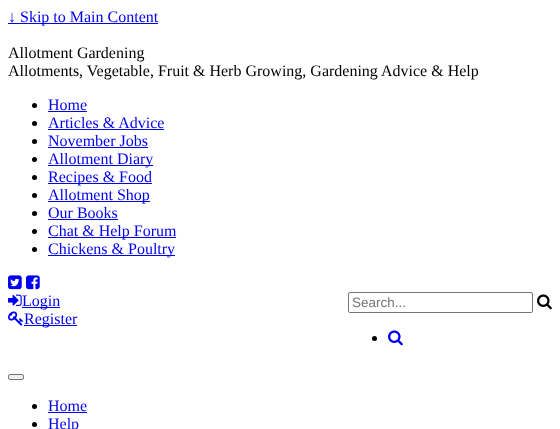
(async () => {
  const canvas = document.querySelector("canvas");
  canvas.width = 560;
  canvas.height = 429;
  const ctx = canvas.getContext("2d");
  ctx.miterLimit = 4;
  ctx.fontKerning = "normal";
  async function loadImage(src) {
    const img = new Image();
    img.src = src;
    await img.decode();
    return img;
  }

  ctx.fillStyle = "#ffffff";
  ctx.fillRect(0, 0, 560, 429);
  ctx.fillStyle = "#0000ee";
  ctx.fillRect(8, 23, 150, 1);
  ctx.fillStyle = "#000000";
  ctx.beginPath();
  ctx.arc(34.5, 105.5, 2.5, 0, Math.PI * 2);
  ctx.fill();
  ctx.fillStyle = "#0000ee";
  ctx.fillRect(48, 111, 39, 1);
  ctx.fillStyle = "#000000";
  ctx.beginPath();
  ctx.arc(34.5, 123.5, 2.5, 0, Math.PI * 2);
  ctx.fill();
  ctx.fillStyle = "#0000ee";
  ctx.fillRect(48, 129, 116, 1);
  ctx.fillStyle = "#000000";
  ctx.beginPath();
  ctx.arc(34.5, 141.5, 2.5, 0, Math.PI * 2);
  ctx.fill();
  ctx.fillStyle = "#0000ee";
  ctx.fillRect(48, 147, 100, 1);
  ctx.fillStyle = "#000000";
  ctx.beginPath();
  ctx.arc(34.5, 159.5, 2.5, 0, Math.PI * 2);
  ctx.fill();
  ctx.fillStyle = "#0000ee";
  ctx.fillRect(48, 165, 105, 1);
  ctx.fillStyle = "#000000";
  ctx.beginPath();
  ctx.arc(34.5, 177.5, 2.5, 0, Math.PI * 2);
  ctx.fill();
  ctx.fillStyle = "#0000ee";
  ctx.fillRect(48, 183, 104, 1);
  ctx.fillStyle = "#000000";
  ctx.beginPath();
  ctx.arc(34.5, 195.5, 2.5, 0, Math.PI * 2);
  ctx.fill();
  ctx.fillStyle = "#0000ee";
  ctx.fillRect(48, 201, 102, 1);
  ctx.fillStyle = "#000000";
  ctx.beginPath();
  ctx.arc(34.5, 213.5, 2.5, 0, Math.PI * 2);
  ctx.fill();
  ctx.fillStyle = "#0000ee";
  ctx.fillRect(48, 219, 70, 1);
  ctx.fillStyle = "#000000";
  ctx.beginPath();
  ctx.arc(34.5, 231.5, 2.5, 0, Math.PI * 2);
  ctx.fill();
  ctx.fillStyle = "#0000ee";
  ctx.fillRect(48, 237, 128, 1);
  ctx.fillStyle = "#000000";
  ctx.beginPath();
  ctx.arc(34.5, 249.5, 2.5, 0, Math.PI * 2);
  ctx.fill();
  ctx.fillStyle = "#0000ee";
  ctx.fillRect(48, 255, 127, 1);
  ctx.drawImage(await loadImage("img/1.png"), 8, 275, 14, 15);
  ctx.drawImage(await loadImage("img/2.png"), 26, 275, 14, 15);
  ctx.drawImage(await loadImage("img/3.png"), 8, 294, 14, 12);
  ctx.fillRect(22, 307, 38, 1);
  ctx.drawImage(await loadImage("img/4.png"), 8, 311, 15, 15);
  ctx.fillRect(24, 325, 53, 1);
  ctx.beginPath();
  ctx.roundRect(348.5, 292.5, 184, 20, 1.5);
  ctx.strokeStyle = "#767676";
  ctx.stroke();
  ctx.drawImage(await loadImage("img/5.png"), 537, 294, 15, 16);
  ctx.fillStyle = "#000000";
  ctx.beginPath();
  ctx.arc(374.5, 338.5, 2.5, 0, Math.PI * 2);
  ctx.fill();
  ctx.drawImage(await loadImage("img/6.png"), 388, 330, 15, 16);
  ctx.fillStyle = "#efefef";
  ctx.beginPath();
  ctx.roundRect(8.5, 374.5, 15, 5, 1.5);
  ctx.fill();
  ctx.stroke();
  ctx.fillStyle = "#000000";
  ctx.beginPath();
  ctx.arc(34.5, 406.5, 2.5, 0, Math.PI * 2);
  ctx.fill();
  ctx.fillStyle = "#0000ee";
  ctx.fillRect(48, 412, 39, 1);
  ctx.fillStyle = "#000000";
  ctx.beginPath();
  ctx.arc(34.5, 424.5, 2.5, 0, Math.PI * 2);
  ctx.fill();
  ctx.font = "16px Liberation Serif";
  ctx.fillStyle = "#0000ee";
  ctx.fillText("↓ Skip to Main Content", 8, 22);
  ctx.fillStyle = "#000000";
  ctx.fillText("Allotment Gardening", 8, 58);
  ctx.fillText("Allotments, Vegetable, Fruit & Herb Growing, Gardening Advice & Help", 8, 76);
  ctx.fillStyle = "#0000ee";
  for (const [text, x, y] of [
    ["Home", 48, 110],
    ["Articles & Advice", 48, 128],
    ["November Jobs", 48, 146],
    ["Allotment Diary", 48, 164],
    ["Recipes & Food", 48, 182],
    ["Allotment Shop", 48, 200],
    ["Our Books", 48, 218],
    ["Chat & Help Forum", 48, 236],
    ["Chickens & Poultry", 48, 254],
    ["Login", 22, 306],
    ["Register", 24, 324],
  ]) {
    ctx.fillText(text, x, y);
  }
  ctx.font = "13.5px Liberation Sans";
  ctx.fillStyle = "#757575";
  ctx.fillText("Search...", 352, 307);
  ctx.font = "16px Liberation Serif";
  ctx.fillStyle = "#0000ee";
  ctx.fillText("Home", 48, 411);
  ctx.fillText("Help", 48, 429);
})();
